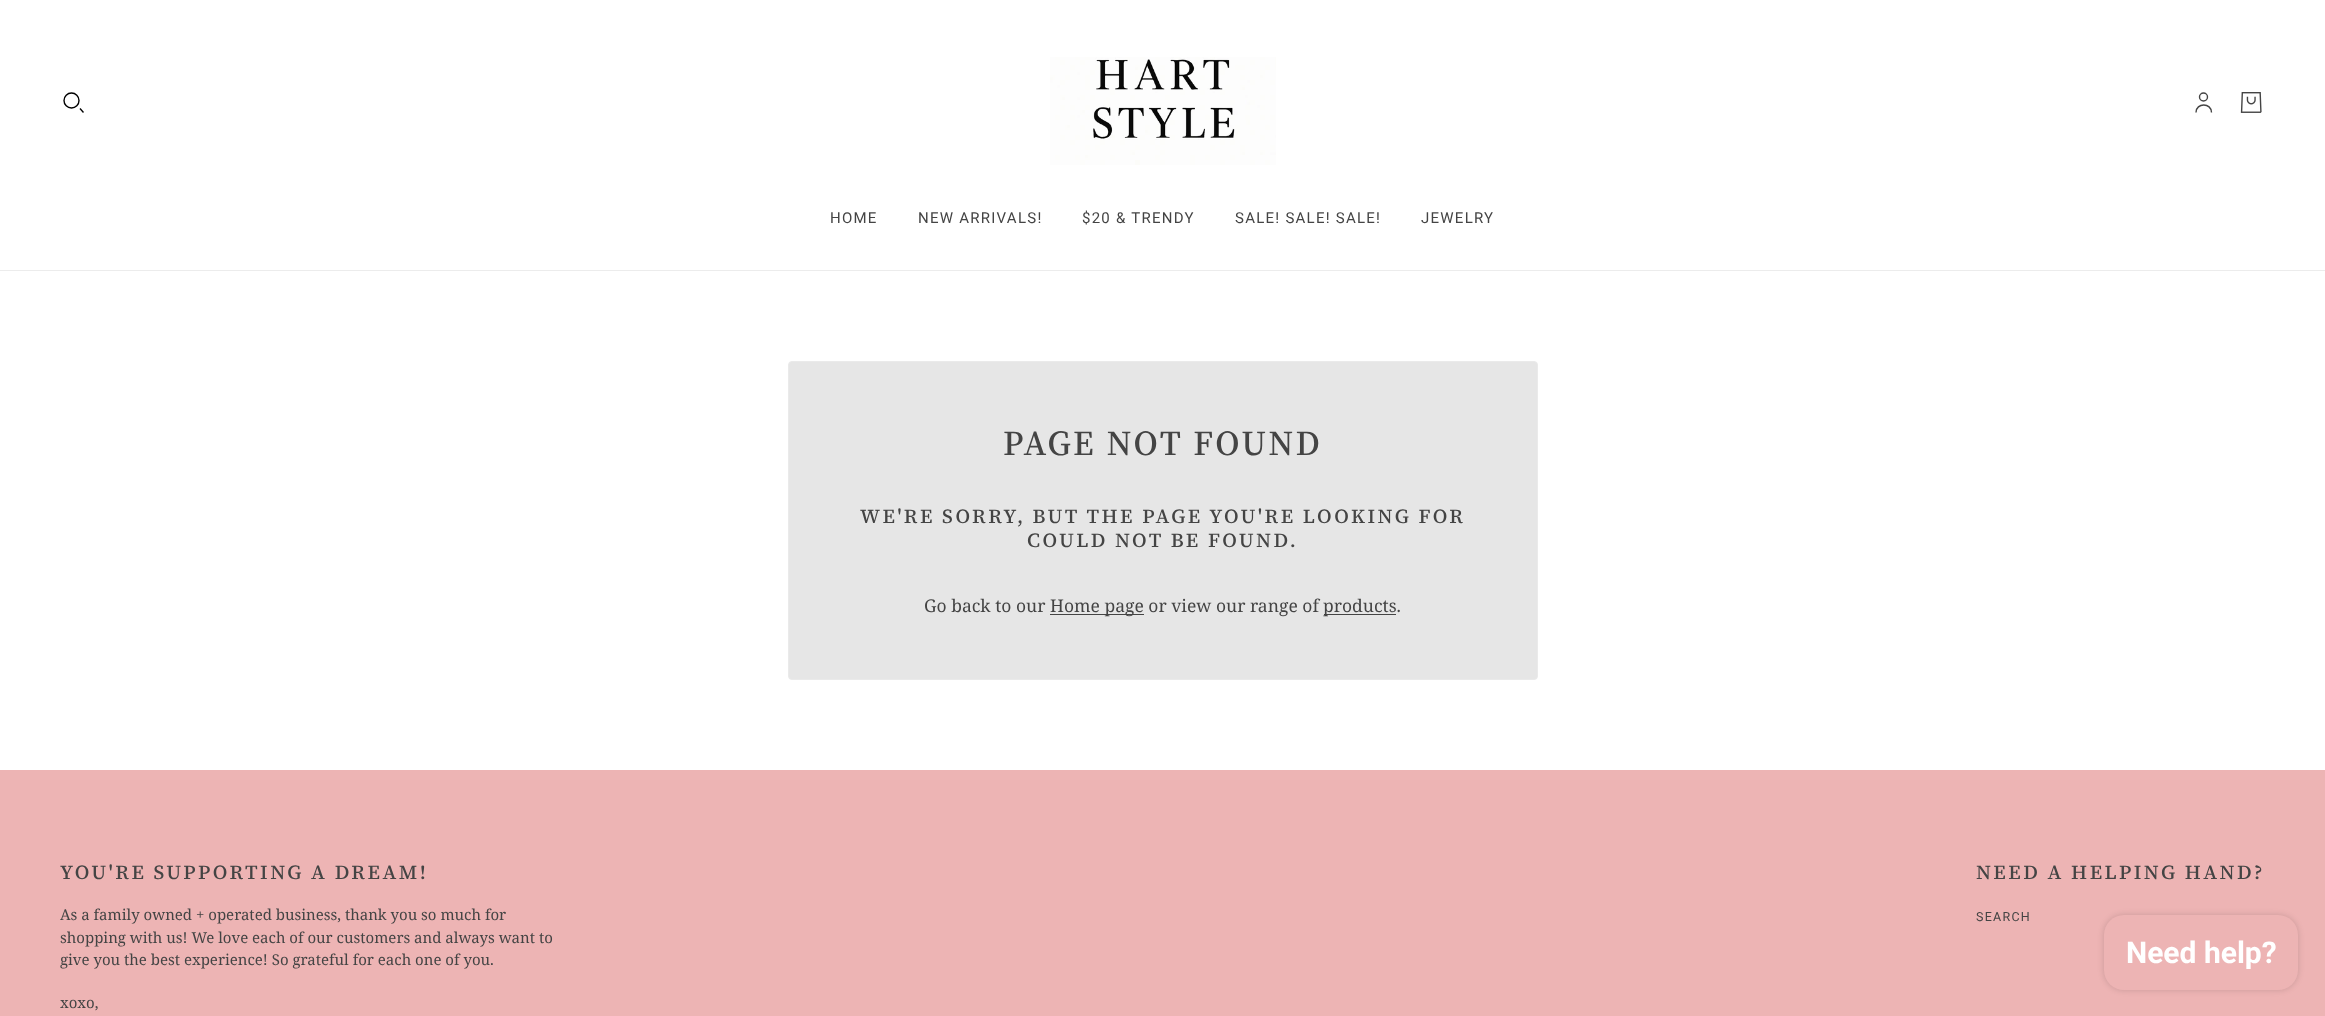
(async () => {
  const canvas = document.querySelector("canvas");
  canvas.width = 2325;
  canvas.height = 1016;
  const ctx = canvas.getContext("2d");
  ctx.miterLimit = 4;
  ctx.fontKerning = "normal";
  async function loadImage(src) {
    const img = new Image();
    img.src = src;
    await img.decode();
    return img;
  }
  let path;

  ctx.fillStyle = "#ffffff";
  ctx.fillRect(0, 0, 2325, 1016);
  ctx.beginPath();
  ctx.arc(71.5, 100.5, 7.5, 0, Math.PI * 2);
  ctx.strokeStyle = "#000000";
  ctx.lineWidth = 1.4;
  ctx.stroke();
  path = new Path2D("M80 108.5L83.5 112.5");
  ctx.stroke(path);
  ctx.drawImage(await loadImage("img/1.png"), 1050, 57, 226, 108);
  ctx.beginPath();
  ctx.arc(2203.5, 97, 4, 0, Math.PI * 2);
  ctx.strokeStyle = "#444444";
  ctx.stroke();
  path = new Path2D("M2196 112.5C2196 102.5 2211.5 102.5 2211.5 112.5");
  ctx.stroke(path);
  ctx.drawImage(await loadImage("img/2.png"), 2240, 92, 22, 21);
  ctx.fillStyle = "#ececec";
  ctx.fillRect(0, 270, 2325, 1);
  ctx.fillStyle = "#e6e6e6";
  ctx.beginPath();
  ctx.roundRect(788.5, 361.5, 749, 318, 3.5);
  ctx.fill();
  ctx.strokeStyle = "#eaeaea";
  ctx.lineWidth = 1;
  ctx.stroke();
  for (const [x, y, w, h, color] of [
    [1050, 614, 94, 1, "#444444"],
    [1324, 614, 72, 1, "#444444"],
    [0, 770, 2325, 246, "#edb4b4"],
  ]) {
    ctx.fillStyle = color;
    ctx.fillRect(x, y, w, h);
  }
  ctx.fillStyle = "rgba(0, 0, 0, 0.15)";
  ctx.filter = "blur(3px)";
  ctx.beginPath();
  ctx.roundRect(2104, 915, 194, 75, 20);
  ctx.fill();
  ctx.filter = "none";
  ctx.fillStyle = "#edb4b4";
  ctx.beginPath();
  ctx.roundRect(2104, 915, 194, 75, 20);
  ctx.fill();
  ctx.letterSpacing = "1.25px";
  ctx.font = "15px Roboto";
  ctx.fillStyle = "#444444";
  for (const [text, x, y] of [
    ["HOME", 830, 223],
    ["NEW ARRIVALS!", 918, 223],
    ["$20 & TRENDY", 1082, 223],
    ["SALE! SALE! SALE!", 1235, 223],
    ["JEWELRY", 1421, 223],
  ]) {
    ctx.fillText(text, x, y);
  }
  ctx.letterSpacing = "2.5px";
  ctx.font = "500 35px 'Source Serif 4'";
  ctx.fillText("PAGE NOT FOUND", 1003, 455);
  ctx.font = "500 20px 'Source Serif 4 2'";
  ctx.fillText("WE'RE SORRY, BUT THE PAGE YOU'RE LOOKING FOR", 860, 523);
  ctx.fillText("COULD NOT BE FOUND.", 1027, 547);
  ctx.letterSpacing = "0px";
  ctx.font = "17.5px Noto Serif";
  for (const [text, x, y] of [
    ["Go back to our", 924, 612],
    ["Home page or view our range of", 1050, 612],
    ["products.", 1323, 612],
  ]) {
    ctx.fillText(text, x, y);
  }
  ctx.letterSpacing = "2.5px";
  ctx.font = "500 20px 'Source Serif 4 2'";
  ctx.fillText("YOU'RE SUPPORTING A DREAM!", 60, 879);
  ctx.letterSpacing = "0px";
  ctx.font = "15px Noto Serif";
  for (const [text, x, y] of [
    ["As a family owned + operated business, thank you so much for", 60, 920],
    ["shopping with us! We love each of our customers and always want to", 60, 943],
    ["give you the best experience! So grateful for each one of you.", 60, 965],
    ["xoxo,", 60, 1008],
  ]) {
    ctx.fillText(text, x, y);
  }
  ctx.letterSpacing = "2.5px";
  ctx.font = "500 20px 'Source Serif 4 2'";
  ctx.fillText("NEED A HELPING HAND?", 1976, 879);
  ctx.letterSpacing = "1.25px";
  ctx.font = "12.5px Roboto";
  ctx.fillText("SEARCH", 1976, 921);
  ctx.letterSpacing = "0px";
  ctx.font = "bold 30px Roboto";
  ctx.fillStyle = "#ffffff";
  ctx.fillText("Need help?", 2126, 963);
})();
